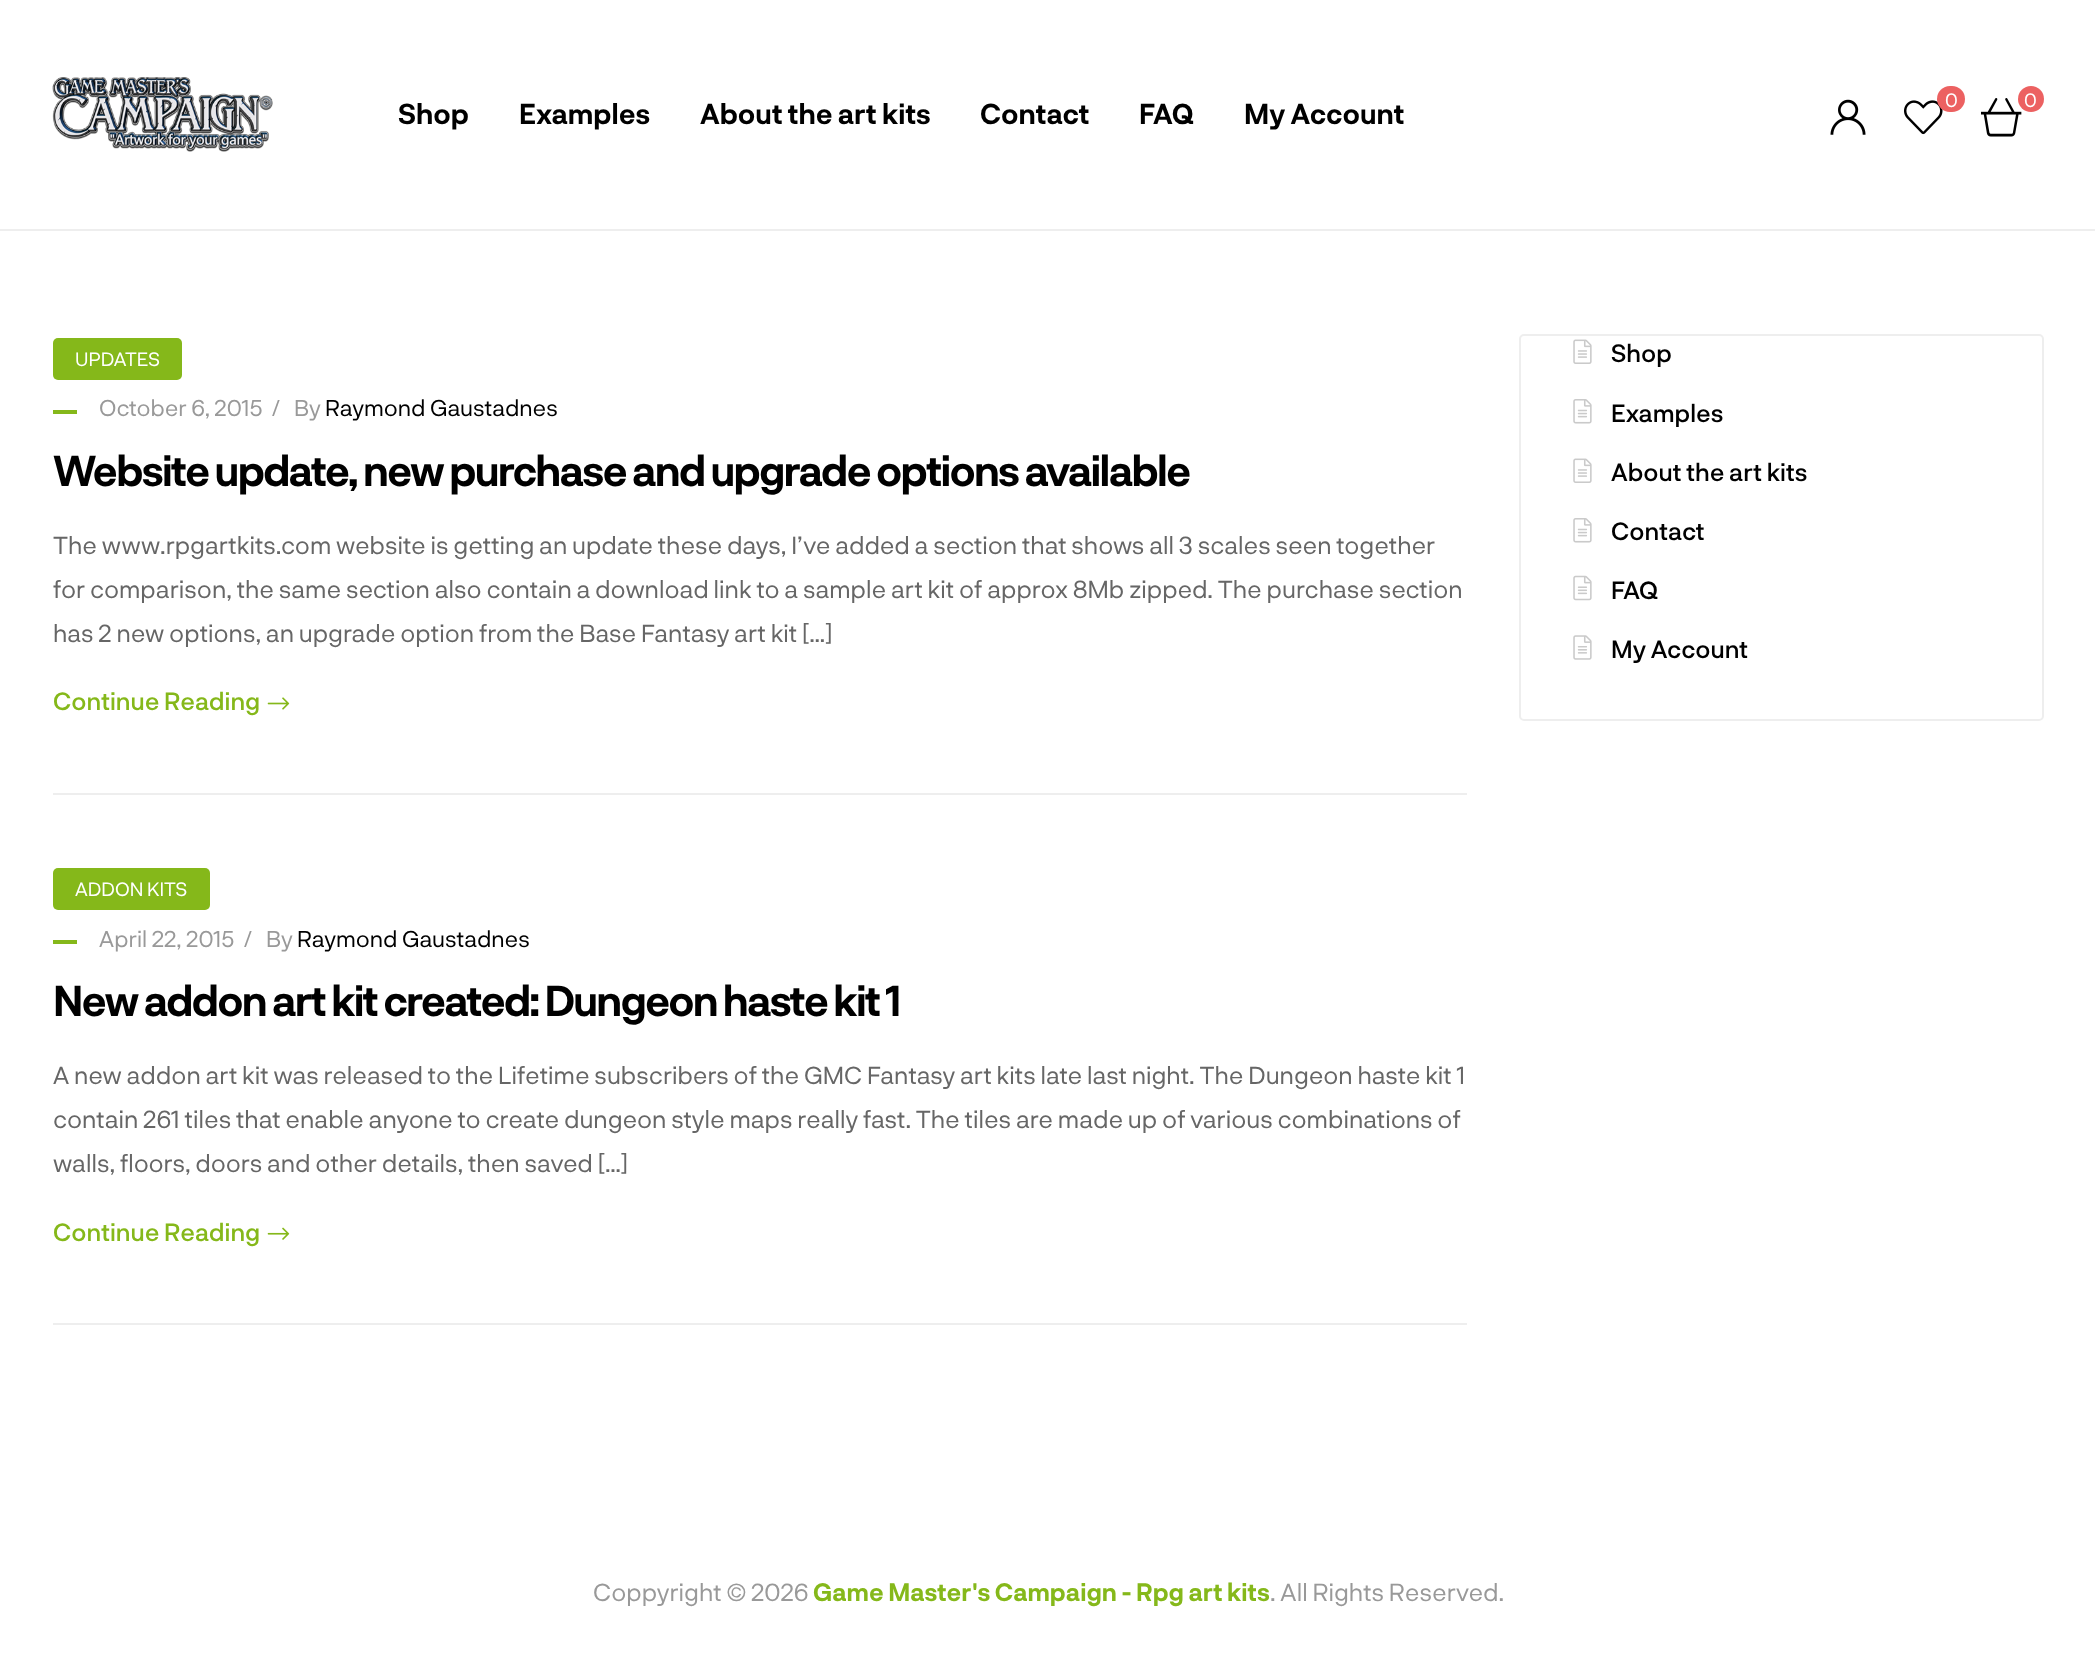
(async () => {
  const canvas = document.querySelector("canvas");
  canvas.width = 2095;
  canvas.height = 1659;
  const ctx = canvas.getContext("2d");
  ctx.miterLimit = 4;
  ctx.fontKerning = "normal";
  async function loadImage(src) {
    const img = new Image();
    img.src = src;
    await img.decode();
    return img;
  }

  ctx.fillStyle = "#ffffff";
  ctx.fillRect(0, 0, 2095, 1659);
  ctx.fillStyle = "#eeeeee";
  ctx.fillRect(0, 229, 2095, 2);
  ctx.drawImage(await loadImage("img/1.png"), 52, 77, 221, 75);
  ctx.drawImage(await loadImage("img/2.png"), 1830, 99, 36, 36);
  ctx.drawImage(await loadImage("img/3.png"), 1904, 100, 39, 35);
  ctx.fillStyle = "#ec6161";
  ctx.beginPath();
  ctx.roundRect(1937, 86, 28, 26, 13);
  ctx.fill();
  ctx.drawImage(await loadImage("img/4.png"), 1981, 98, 41, 39);
  ctx.beginPath();
  ctx.arc(2031, 99, 13, 0, Math.PI * 2);
  ctx.fill();
  ctx.fillStyle = "#eeeeee";
  ctx.fillRect(53, 793, 1414, 2);
  ctx.fillStyle = "#85b81a";
  ctx.beginPath();
  ctx.roundRect(53, 338, 129, 42, 5);
  ctx.fill();
  ctx.fillRect(53, 410, 24, 4);
  ctx.drawImage(await loadImage("img/5.png"), 267, 697, 23, 13);
  ctx.fillStyle = "#eeeeee";
  ctx.fillRect(53, 1323, 1414, 2);
  ctx.fillStyle = "#85b81a";
  ctx.beginPath();
  ctx.roundRect(53, 868, 157, 42, 5);
  ctx.fill();
  ctx.fillRect(53, 940, 24, 4);
  ctx.drawImage(await loadImage("img/6.png"), 267, 1227, 23, 13);
  ctx.beginPath();
  ctx.roundRect(1520, 335, 523, 385, 4);
  ctx.strokeStyle = "#eeeeee";
  ctx.lineWidth = 2;
  ctx.stroke();
  ctx.drawImage(await loadImage("img/7.png"), 1573, 339, 19, 25);
  ctx.drawImage(await loadImage("img/8.png"), 1573, 399, 19, 25);
  ctx.drawImage(await loadImage("img/7.png"), 1573, 458, 19, 25);
  ctx.drawImage(await loadImage("img/8.png"), 1573, 518, 19, 25);
  ctx.drawImage(await loadImage("img/9.png"), 1573, 575, 19, 26);
  ctx.drawImage(await loadImage("img/10.png"), 1573, 635, 19, 25);
  ctx.font = "19.25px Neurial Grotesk";
  ctx.fillStyle = "#ffffff";
  ctx.fillText("0", 1945, 107);
  ctx.fillText("0", 2024, 107);
  ctx.font = "bold 28px Neurial Grotesk";
  ctx.fillStyle = "#000000";
  for (const [text, x, y] of [
    ["Shop", 398, 124],
    ["Examples", 519, 124],
    ["About the art kits", 700, 124],
    ["Contact", 980, 124],
    ["FAQ", 1139, 124],
    ["My Account", 1244, 124],
  ]) {
    ctx.fillText(text, x, y);
  }
  ctx.font = "19.25px Neurial Grotesk";
  ctx.fillStyle = "#ffffff";
  ctx.fillText("UPDATES", 75, 366);
  ctx.font = "22.75px Neurial Grotesk";
  ctx.fillStyle = "#999999";
  for (const [text, x, y] of [
    ["October 6, 2015", 99, 416],
    ["/", 272, 416],
    ["By", 294, 416],
  ]) {
    ctx.fillText(text, x, y);
  }
  ctx.fillStyle = "#000000";
  ctx.fillText("Raymond Gaustadnes", 325, 416);
  ctx.letterSpacing = "-1.75px";
  ctx.font = "bold 42px Neurial Grotesk";
  ctx.fillText("Website update, new purchase and upgrade options available", 53, 486);
  ctx.letterSpacing = "0px";
  ctx.font = "24.5px Neurial Grotesk";
  ctx.fillStyle = "#666666";
  for (const [text, x, y] of [
    ["The www.rpgartkits.com website is getting an update these days, I’ve added a section that shows all 3 scales seen together", 53, 554],
    ["for comparison, the same section also contain a download link to a sample art kit of approx 8Mb zipped. The purchase section", 53, 598],
    ["has 2 new options, an upgrade option from the Base Fantasy art kit […]", 53, 642],
  ]) {
    ctx.fillText(text, x, y);
  }
  ctx.font = "500 24.5px Neurial Grotesk";
  ctx.fillStyle = "#85b81a";
  ctx.fillText("Continue Reading", 53, 710);
  ctx.font = "19.25px Neurial Grotesk";
  ctx.fillStyle = "#ffffff";
  ctx.fillText("ADDON KITS", 75, 896);
  ctx.font = "22.75px Neurial Grotesk";
  ctx.fillStyle = "#999999";
  for (const [text, x, y] of [
    ["April 22, 2015", 99, 947],
    ["/", 244, 947],
    ["By", 266, 947],
  ]) {
    ctx.fillText(text, x, y);
  }
  ctx.fillStyle = "#000000";
  ctx.fillText("Raymond Gaustadnes", 297, 947);
  ctx.letterSpacing = "-1.75px";
  ctx.font = "bold 42px Neurial Grotesk";
  ctx.fillText("New addon art kit created: Dungeon haste kit 1", 53, 1016);
  ctx.letterSpacing = "0px";
  ctx.font = "24.5px Neurial Grotesk";
  ctx.fillStyle = "#666666";
  for (const [text, x, y] of [
    ["A new addon art kit was released to the Lifetime subscribers of the GMC Fantasy art kits late last night. The Dungeon haste kit 1", 53, 1084],
    ["contain 261 tiles that enable anyone to create dungeon style maps really fast. The tiles are made up of various combinations of", 53, 1128],
    ["walls, floors, doors and other details, then saved […]", 53, 1172],
  ]) {
    ctx.fillText(text, x, y);
  }
  ctx.font = "500 24.5px Neurial Grotesk";
  ctx.fillStyle = "#85b81a";
  ctx.fillText("Continue Reading", 53, 1241);
  ctx.fillStyle = "#000000";
  for (const [text, x, y] of [
    ["Shop", 1611, 362],
    ["Examples", 1611, 422],
    ["About the art kits", 1611, 481],
    ["Contact", 1611, 540],
    ["FAQ", 1611, 599],
    ["My Account", 1611, 658],
  ]) {
    ctx.fillText(text, x, y);
  }
  ctx.font = "24.5px Neurial Grotesk";
  ctx.fillStyle = "#999999";
  ctx.fillText("Coppyright © 2026", 593, 1601);
  ctx.font = "bold 24.5px Neurial Grotesk";
  ctx.fillStyle = "#85b81a";
  ctx.fillText("Game Master's Campaign - Rpg art kits", 813, 1601);
  ctx.font = "24.5px Neurial Grotesk";
  ctx.fillStyle = "#999999";
  ctx.fillText(". All Rights Reserved.", 1270, 1601);
})();
